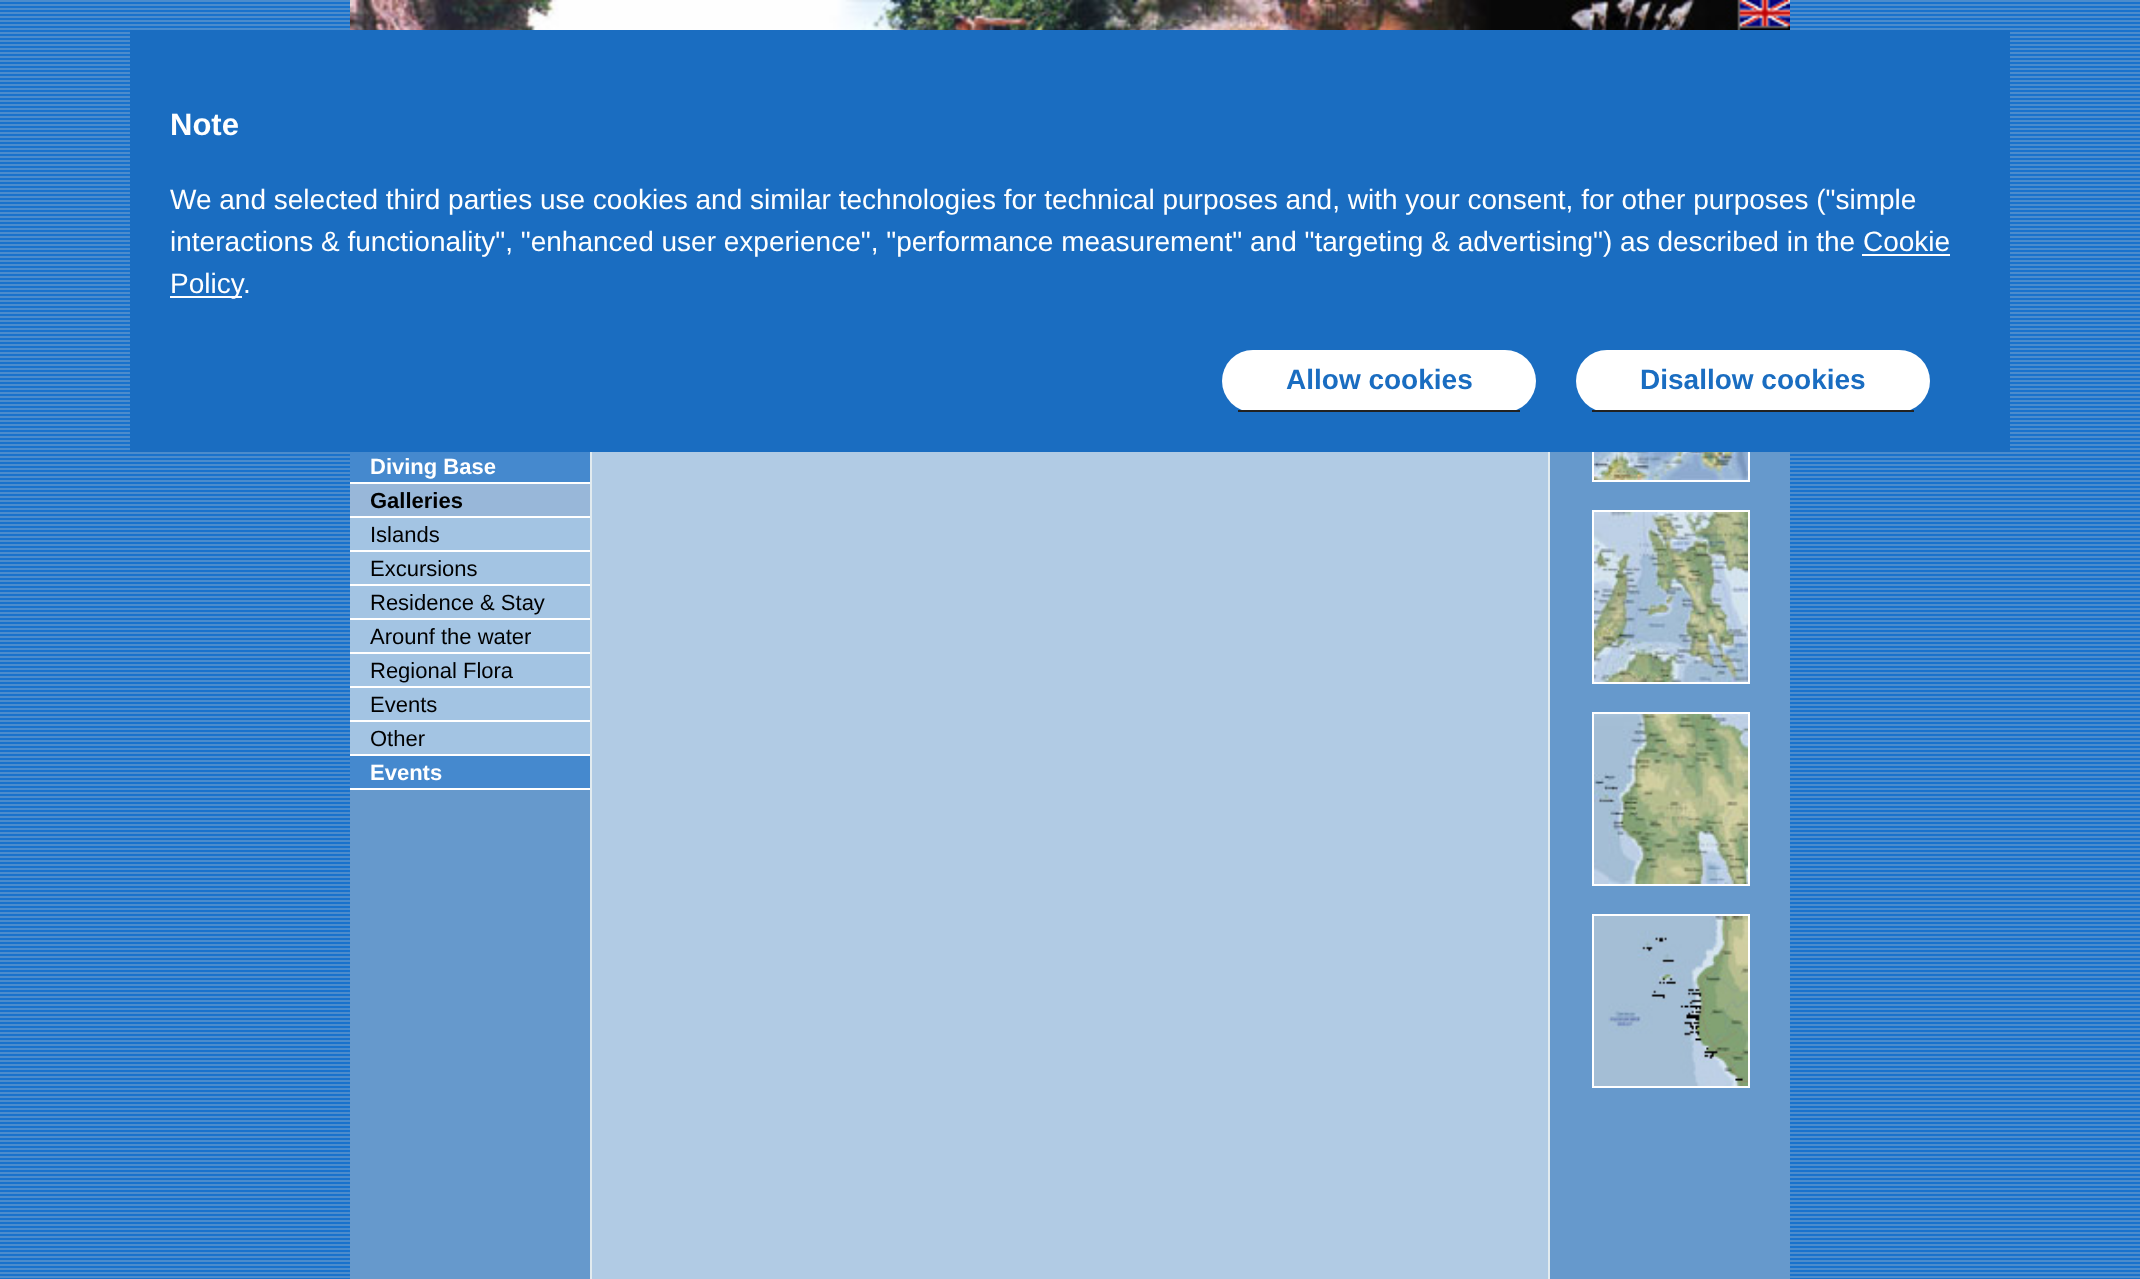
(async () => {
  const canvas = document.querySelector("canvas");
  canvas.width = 2140;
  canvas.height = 1279;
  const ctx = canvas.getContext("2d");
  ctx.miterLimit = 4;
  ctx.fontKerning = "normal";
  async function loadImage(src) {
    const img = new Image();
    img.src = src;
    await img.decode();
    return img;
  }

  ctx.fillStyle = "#ffffff";
  ctx.fillRect(0, 0, 2140, 1279);
  ctx.drawImage(await loadImage("img/1.png"), 0, 0, 2140, 1279);
  ctx.fillStyle = "#6699cc";
  ctx.fillRect(1550, 452, 240, 827);
  ctx.strokeStyle = "#ffffff";
  ctx.lineWidth = 2;
  ctx.strokeRect(1593, 309, 156, 172);
  for (const [x, y, w, h, color] of [
    [130, 30, 1880, 422, "#1a6dc1"],
    [1862, 254, 88, 2, "#ffffff"],
    [170, 296, 72, 2, "#ffffff"],
  ]) {
    ctx.fillStyle = color;
    ctx.fillRect(x, y, w, h);
  }
  ctx.beginPath();
  ctx.roundRect(1222, 350, 314, 62, 31);
  ctx.fill();
  ctx.fillStyle = "#222222";
  ctx.fillRect(1238, 410, 282, 2);
  ctx.fillStyle = "#ffffff";
  ctx.beginPath();
  ctx.roundRect(1576, 350, 354, 62, 31);
  ctx.fill();
  ctx.fillStyle = "#222222";
  ctx.fillRect(1592, 410, 322, 2);
  ctx.drawImage(await loadImage("img/2.png"), 350, 0, 1440, 30);
  for (const [x, y, w, h, color] of [
    [350, 790, 240, 489, "#6699cc"],
    [350, 452, 240, 30, "#4589ce"],
    [350, 482, 240, 2, "#ffffff"],
    [350, 516, 240, 2, "#ffffff"],
    [350, 484, 240, 32, "#98b7d9"],
    [350, 550, 240, 2, "#ffffff"],
    [350, 518, 240, 32, "#a3c4e3"],
    [350, 584, 240, 2, "#ffffff"],
    [350, 552, 240, 32, "#a3c4e3"],
    [350, 618, 240, 2, "#ffffff"],
    [350, 586, 240, 32, "#a3c4e3"],
    [350, 652, 240, 2, "#ffffff"],
    [350, 620, 240, 32, "#a3c4e3"],
    [350, 686, 240, 2, "#ffffff"],
    [350, 654, 240, 32, "#a3c4e3"],
    [350, 720, 240, 2, "#ffffff"],
    [350, 688, 240, 32, "#a3c4e3"],
    [350, 754, 240, 2, "#ffffff"],
    [350, 722, 240, 32, "#a3c4e3"],
    [350, 756, 240, 32, "#4589ce"],
    [350, 788, 240, 2, "#ffffff"],
    [592, 452, 956, 827, "#b1cbe4"],
    [1548, 452, 2, 827, "#e2ebef"],
    [590, 452, 2, 827, "#e2ebef"],
  ]) {
    ctx.fillStyle = color;
    ctx.fillRect(x, y, w, h);
  }
  ctx.drawImage(await loadImage("img/3.png"), 1594, 452, 154, 28);
  ctx.strokeRect(1593, 511, 156, 172);
  ctx.drawImage(await loadImage("img/4.png"), 1594, 512, 154, 170);
  ctx.strokeRect(1593, 713, 156, 172);
  ctx.drawImage(await loadImage("img/5.png"), 1594, 714, 154, 170);
  ctx.strokeRect(1593, 915, 156, 172);
  ctx.drawImage(await loadImage("img/6.png"), 1594, 916, 154, 170);
  ctx.font = "bold 31px Liberation Sans";
  ctx.fillStyle = "#ffffff";
  ctx.fillText("Note", 170, 135);
  ctx.font = "28px Liberation Sans";
  for (const [text, x, y] of [
    ["We and selected third parties use cookies and similar technologies for technical purposes and, with your consent, for other purposes (\"simple", 170, 209],
    ["interactions & functionality\", \"enhanced user experience\", \"performance measurement\" and \"targeting & advertising\") as described in the Cookie", 170, 251],
    ["Policy", 170, 293],
    [".", 243, 293],
  ]) {
    ctx.fillText(text, x, y);
  }
  ctx.font = "bold 28px Liberation Sans";
  ctx.fillStyle = "#1a6dc1";
  ctx.fillText("Allow cookies", 1286, 389);
  ctx.fillText("Disallow cookies", 1640, 389);
  ctx.font = "bold 22px Liberation Sans";
  ctx.fillStyle = "#ffffff";
  ctx.fillText("Diving Base", 370, 474);
  ctx.fillStyle = "#000000";
  ctx.fillText("Galleries", 370, 508);
  ctx.font = "22px Liberation Sans";
  for (const [text, x, y] of [
    ["Islands", 370, 542],
    ["Excursions", 370, 576],
    ["Residence & Stay", 370, 610],
    ["Arounf the water", 370, 644],
    ["Regional Flora", 370, 678],
    ["Events", 370, 712],
    ["Other", 370, 746],
  ]) {
    ctx.fillText(text, x, y);
  }
  ctx.font = "bold 22px Liberation Sans";
  ctx.fillStyle = "#ffffff";
  ctx.fillText("Events", 370, 780);
})();
